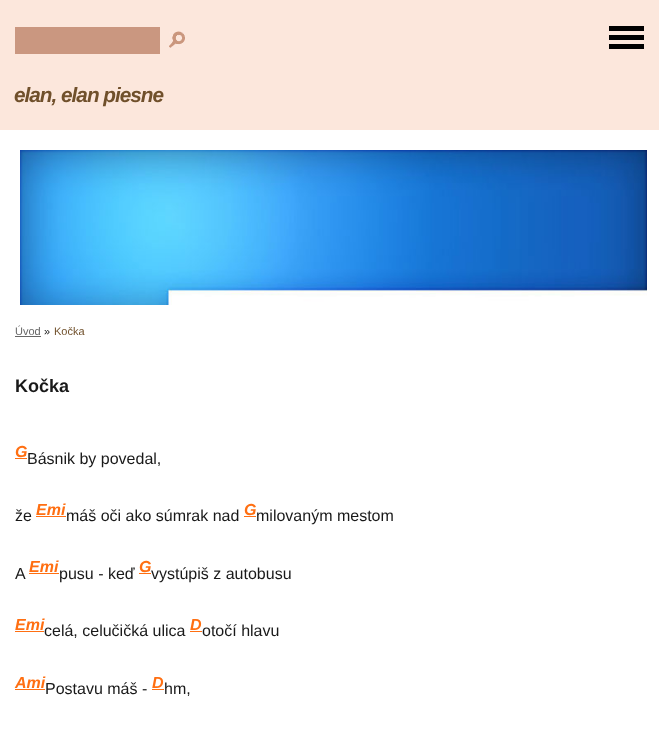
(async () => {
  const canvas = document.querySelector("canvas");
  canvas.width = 659;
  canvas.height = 729;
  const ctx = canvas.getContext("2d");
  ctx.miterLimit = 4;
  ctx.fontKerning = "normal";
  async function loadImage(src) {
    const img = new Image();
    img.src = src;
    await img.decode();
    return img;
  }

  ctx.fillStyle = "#fce7dc";
  ctx.fillRect(0, 0, 659, 729);
  ctx.fillStyle = "#ffffff";
  ctx.fillRect(0, 130, 659, 599);
  ctx.fillStyle = "#ca9780";
  ctx.fillRect(15, 27, 145, 27);
  ctx.drawImage(await loadImage("img/1.png"), 169, 31, 16, 18);
  for (const [x, y, w, h, color] of [
    [609, 26, 35, 5, "#000000"],
    [609, 35, 35, 5, "#000000"],
    [609, 44, 35, 5, "#000000"],
  ]) {
    ctx.fillStyle = color;
    ctx.fillRect(x, y, w, h);
  }
  ctx.drawImage(await loadImage("img/2.png"), 20, 150, 627, 165);
  ctx.beginPath();
  ctx.roundRect(5, 135, 649, 175, 15);
  ctx.strokeStyle = "#ffffff";
  ctx.lineWidth = 10;
  ctx.stroke();
  for (const [x, y, w, h, color] of [
    [15, 336, 26, 1, "#666666"],
    [15, 458, 12, 1, "#ff6f12"],
    [36, 516, 30, 1, "#ff6f12"],
    [244, 516, 12, 1, "#ff6f12"],
    [29, 573, 30, 1, "#ff6f12"],
    [139, 573, 12, 1, "#ff6f12"],
    [15, 631, 29, 1, "#ff6f12"],
    [190, 631, 12, 1, "#ff6f12"],
    [15, 689, 30, 1, "#ff6f12"],
    [152, 689, 12, 1, "#ff6f12"],
  ]) {
    ctx.fillStyle = color;
    ctx.fillRect(x, y, w, h);
  }
  ctx.letterSpacing = "-1px";
  ctx.font = "italic bold 20.75px Liberation Sans";
  ctx.fillStyle = "#70502b";
  ctx.fillText("elan, elan piesne", 14, 102);
  ctx.letterSpacing = "0px";
  ctx.font = "11px Liberation Sans";
  ctx.fillStyle = "#666666";
  ctx.fillText("Úvod", 15, 335);
  ctx.fillStyle = "#191919";
  ctx.fillText("»", 44, 335);
  ctx.fillStyle = "#70502b";
  ctx.fillText("Kočka", 54, 335);
  ctx.font = "bold 18px Liberation Sans";
  ctx.fillStyle = "#191919";
  ctx.fillText("Kočka", 15, 392);
  ctx.font = "italic bold 16px Liberation Sans";
  ctx.fillStyle = "#ff6f12";
  ctx.fillText("G", 15, 457);
  ctx.font = "16px Liberation Sans";
  ctx.fillStyle = "#191919";
  ctx.fillText("Básnik by povedal,", 27, 464);
  ctx.fillText("že", 15, 521);
  ctx.font = "italic bold 16px Liberation Sans";
  ctx.fillStyle = "#ff6f12";
  ctx.fillText("Emi", 36, 515);
  ctx.font = "16px Liberation Sans";
  ctx.fillStyle = "#191919";
  ctx.fillText("máš oči ako súmrak nad", 66, 521);
  ctx.font = "italic bold 16px Liberation Sans";
  ctx.fillStyle = "#ff6f12";
  ctx.fillText("G", 244, 515);
  ctx.font = "16px Liberation Sans";
  ctx.fillStyle = "#191919";
  ctx.fillText("milovaným mestom", 256, 521);
  ctx.fillText("A", 15, 579);
  ctx.font = "italic bold 16px Liberation Sans";
  ctx.fillStyle = "#ff6f12";
  ctx.fillText("Emi", 29, 572);
  ctx.font = "16px Liberation Sans";
  ctx.fillStyle = "#191919";
  ctx.fillText("pusu - keď", 59, 579);
  ctx.font = "italic bold 16px Liberation Sans";
  ctx.fillStyle = "#ff6f12";
  ctx.fillText("G", 139, 572);
  ctx.font = "16px Liberation Sans";
  ctx.fillStyle = "#191919";
  ctx.fillText("vystúpiš z autobusu", 151, 579);
  ctx.font = "italic bold 16px Liberation Sans";
  ctx.fillStyle = "#ff6f12";
  ctx.fillText("Emi", 15, 630);
  ctx.font = "16px Liberation Sans";
  ctx.fillStyle = "#191919";
  ctx.fillText("celá, celučičká ulica", 44, 636);
  ctx.font = "italic bold 16px Liberation Sans";
  ctx.fillStyle = "#ff6f12";
  ctx.fillText("D", 190, 630);
  ctx.font = "16px Liberation Sans";
  ctx.fillStyle = "#191919";
  ctx.fillText("otočí hlavu", 202, 636);
  ctx.font = "italic bold 16px Liberation Sans";
  ctx.fillStyle = "#ff6f12";
  ctx.fillText("Ami", 15, 688);
  ctx.font = "16px Liberation Sans";
  ctx.fillStyle = "#191919";
  ctx.fillText("Postavu máš -", 45, 694);
  ctx.font = "italic bold 16px Liberation Sans";
  ctx.fillStyle = "#ff6f12";
  ctx.fillText("D", 152, 688);
  ctx.font = "16px Liberation Sans";
  ctx.fillStyle = "#191919";
  ctx.fillText("hm,", 164, 694);
})();
